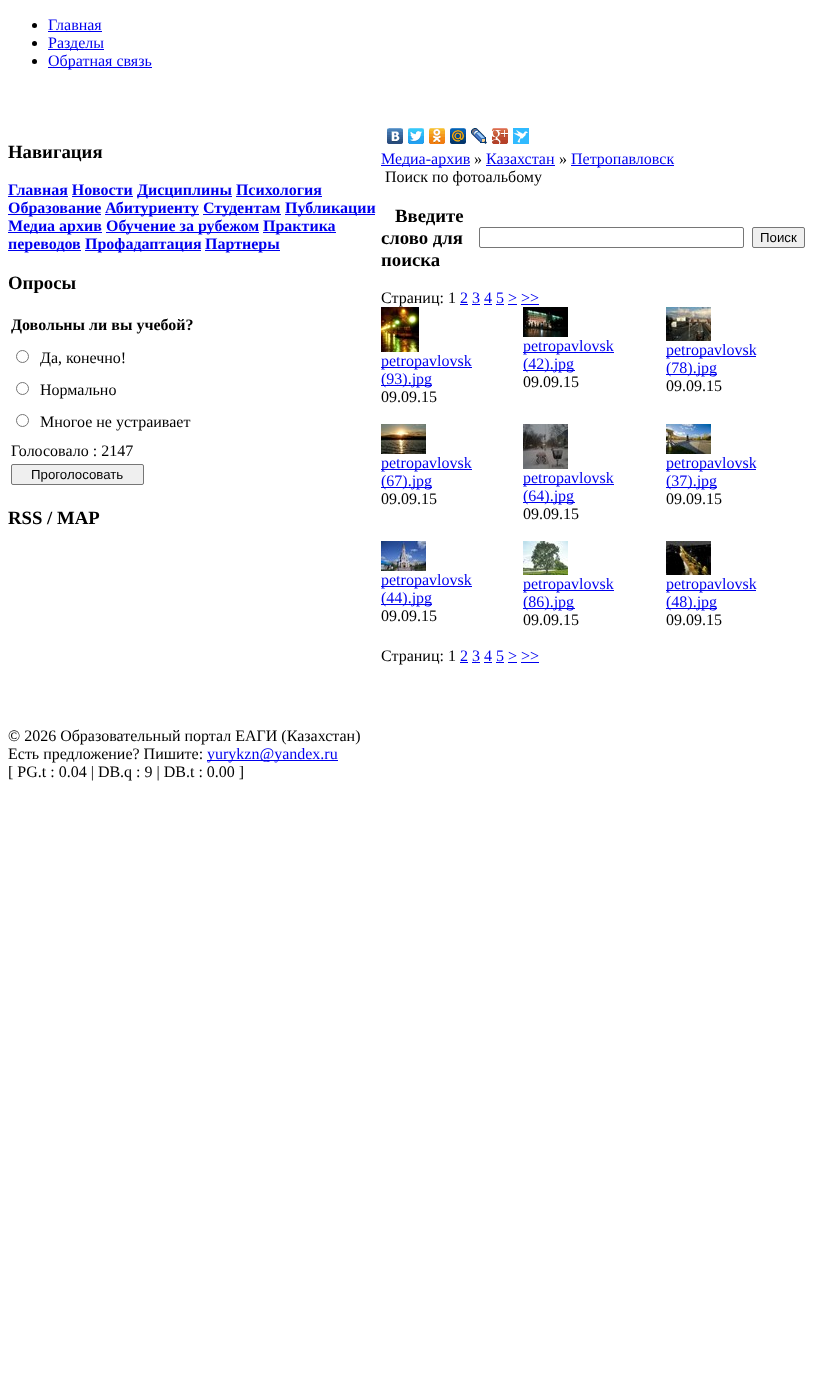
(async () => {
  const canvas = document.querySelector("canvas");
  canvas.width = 816;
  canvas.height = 1395;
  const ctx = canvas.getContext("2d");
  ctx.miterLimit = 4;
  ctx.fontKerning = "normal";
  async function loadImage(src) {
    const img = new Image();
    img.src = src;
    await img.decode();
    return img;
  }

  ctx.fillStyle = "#ffffff";
  ctx.fillRect(0, 0, 816, 1395);
  ctx.fillStyle = "#000000";
  ctx.beginPath();
  ctx.arc(34.5, 25.5, 2.5, 0, Math.PI * 2);
  ctx.fill();
  ctx.fillStyle = "#0000ee";
  ctx.fillRect(48, 31, 54, 1);
  ctx.fillStyle = "#000000";
  ctx.beginPath();
  ctx.arc(34.5, 43.5, 2.5, 0, Math.PI * 2);
  ctx.fill();
  ctx.fillStyle = "#0000ee";
  ctx.fillRect(48, 49, 56, 1);
  ctx.fillStyle = "#000000";
  ctx.beginPath();
  ctx.arc(34.5, 61.5, 2.5, 0, Math.PI * 2);
  ctx.fill();
  for (const [x, y, w, h, color] of [
    [48, 67, 104, 1, "#0000ee"],
    [8, 196, 60, 1, "#0000ee"],
    [72, 196, 61, 1, "#0000ee"],
    [137, 196, 95, 1, "#0000ee"],
    [236, 196, 86, 1, "#0000ee"],
    [8, 214, 93, 1, "#0000ee"],
    [105, 214, 94, 1, "#0000ee"],
    [203, 214, 78, 1, "#0000ee"],
    [285, 214, 90, 1, "#0000ee"],
    [8, 232, 94, 1, "#0000ee"],
    [106, 232, 153, 1, "#0000ee"],
    [263, 232, 73, 1, "#0000ee"],
    [8, 250, 73, 1, "#0000ee"],
    [85, 250, 116, 1, "#0000ee"],
    [205, 250, 75, 1, "#0000ee"],
  ]) {
    ctx.fillStyle = color;
    ctx.fillRect(x, y, w, h);
  }
  ctx.beginPath();
  ctx.arc(22.5, 356.5, 6, 0, Math.PI * 2);
  ctx.strokeStyle = "#767676";
  ctx.stroke();
  ctx.beginPath();
  ctx.arc(22.5, 388.5, 6, 0, Math.PI * 2);
  ctx.stroke();
  ctx.beginPath();
  ctx.arc(22.5, 420.5, 6, 0, Math.PI * 2);
  ctx.stroke();
  ctx.fillStyle = "#efefef";
  ctx.beginPath();
  ctx.roundRect(11.5, 464.5, 132, 20, 1.5);
  ctx.fill();
  ctx.stroke();
  ctx.drawImage(await loadImage("img/1.png"), 387, 128, 16, 16);
  ctx.drawImage(await loadImage("img/2.png"), 408, 128, 16, 16);
  ctx.drawImage(await loadImage("img/3.png"), 429, 128, 16, 16);
  ctx.drawImage(await loadImage("img/4.png"), 450, 128, 16, 16);
  ctx.drawImage(await loadImage("img/5.png"), 471, 128, 16, 16);
  ctx.drawImage(await loadImage("img/6.png"), 492, 128, 16, 16);
  ctx.drawImage(await loadImage("img/7.png"), 513, 128, 16, 16);
  for (const [x, y, w, h, color] of [
    [381, 165, 89, 1, "#0000ee"],
    [486, 165, 69, 1, "#0000ee"],
    [571, 165, 103, 1, "#0000ee"],
  ]) {
    ctx.fillStyle = color;
    ctx.fillRect(x, y, w, h);
  }
  ctx.beginPath();
  ctx.roundRect(479.5, 227.5, 264, 20, 1.5);
  ctx.stroke();
  ctx.fillStyle = "#efefef";
  ctx.beginPath();
  ctx.roundRect(752.5, 227.5, 52, 20, 1.5);
  ctx.fill();
  ctx.stroke();
  for (const [x, y, w, h, color] of [
    [460, 304, 8, 1, "#0000ee"],
    [472, 304, 8, 1, "#0000ee"],
    [484, 304, 8, 1, "#0000ee"],
    [496, 304, 8, 1, "#0000ee"],
    [508, 304, 9, 1, "#0000ee"],
    [521, 304, 18, 1, "#0000ee"],
  ]) {
    ctx.fillStyle = color;
    ctx.fillRect(x, y, w, h);
  }
  ctx.drawImage(await loadImage("img/8.png"), 381, 307, 38, 45);
  ctx.fillRect(381, 367, 91, 1);
  ctx.fillRect(381, 385, 51, 1);
  ctx.drawImage(await loadImage("img/9.png"), 523, 307, 45, 30);
  ctx.fillRect(523, 352, 91, 1);
  ctx.fillRect(523, 370, 52, 1);
  ctx.drawImage(await loadImage("img/10.png"), 666, 307, 45, 34);
  ctx.fillRect(666, 356, 90, 1);
  ctx.fillRect(666, 374, 51, 1);
  ctx.drawImage(await loadImage("img/11.png"), 381, 424, 45, 30);
  ctx.fillRect(381, 469, 91, 1);
  ctx.fillRect(381, 487, 51, 1);
  ctx.drawImage(await loadImage("img/12.png"), 523, 424, 45, 45);
  ctx.fillRect(523, 484, 91, 1);
  ctx.fillRect(523, 502, 52, 1);
  ctx.drawImage(await loadImage("img/13.png"), 666, 424, 45, 30);
  ctx.fillRect(666, 469, 90, 1);
  ctx.fillRect(666, 487, 51, 1);
  ctx.drawImage(await loadImage("img/14.png"), 381, 541, 45, 30);
  ctx.fillRect(381, 586, 91, 1);
  ctx.fillRect(381, 604, 51, 1);
  ctx.drawImage(await loadImage("img/15.png"), 523, 541, 45, 34);
  ctx.fillRect(523, 590, 91, 1);
  ctx.fillRect(523, 608, 52, 1);
  ctx.drawImage(await loadImage("img/16.png"), 666, 541, 45, 34);
  for (const [x, y, w, h, color] of [
    [666, 590, 90, 1, "#0000ee"],
    [666, 608, 51, 1, "#0000ee"],
    [460, 662, 8, 1, "#0000ee"],
    [472, 662, 8, 1, "#0000ee"],
    [484, 662, 8, 1, "#0000ee"],
    [496, 662, 8, 1, "#0000ee"],
    [508, 662, 9, 1, "#0000ee"],
    [521, 662, 18, 1, "#0000ee"],
    [207, 760, 131, 1, "#0000ee"],
  ]) {
    ctx.fillStyle = color;
    ctx.fillRect(x, y, w, h);
  }
  ctx.font = "16px Liberation Serif";
  for (const [text, x, y] of [
    ["Главная", 48, 30],
    ["Разделы", 48, 48],
    ["Обратная связь", 48, 66],
  ]) {
    ctx.fillText(text, x, y);
  }
  ctx.font = "bold 18.75px Liberation Serif";
  ctx.fillStyle = "#000000";
  ctx.fillText("Навигация", 8, 158);
  ctx.font = "bold 16px Liberation Serif";
  ctx.fillStyle = "#0000ee";
  for (const [text, x, y] of [
    ["Главная Новости", 8, 195],
    ["Дисциплины Психология", 137, 195],
    ["Образование", 8, 213],
    ["Абитуриенту", 105, 213],
    ["Студентам", 203, 213],
    ["Публикации", 285, 213],
    ["Медиа архив", 8, 231],
    ["Обучение за рубежом", 106, 231],
    ["Практика", 263, 231],
    ["переводов", 8, 249],
    ["Профадаптация", 85, 249],
    ["Партнеры", 205, 249],
  ]) {
    ctx.fillText(text, x, y);
  }
  ctx.font = "bold 18.75px Liberation Serif";
  ctx.fillStyle = "#000000";
  ctx.fillText("Опросы", 8, 289);
  ctx.font = "bold 16px Liberation Serif";
  ctx.fillText("Довольны ли вы учебой?", 11, 330);
  ctx.font = "16px Liberation Serif";
  for (const [text, x, y] of [
    ["Да, конечно!", 40, 363],
    ["Нормально", 40, 395],
    ["Многое не устраивает", 40, 427],
    ["Голосовало : 2147", 11, 456],
  ]) {
    ctx.fillText(text, x, y);
  }
  ctx.font = "13.25px Liberation Sans";
  ctx.fillText("Проголосовать", 31, 479);
  ctx.font = "bold 18.75px Liberation Serif";
  ctx.fillText("RSS / MAP", 8, 524);
  ctx.font = "16px Liberation Serif";
  ctx.fillStyle = "#0000ee";
  ctx.fillText("Медиа-архив", 381, 164);
  ctx.fillStyle = "#000000";
  ctx.fillText("»", 474, 164);
  ctx.fillStyle = "#0000ee";
  ctx.fillText("Казахстан", 486, 164);
  ctx.fillStyle = "#000000";
  ctx.fillText("»", 559, 164);
  ctx.fillStyle = "#0000ee";
  ctx.fillText("Петропавловск", 571, 164);
  ctx.fillStyle = "#000000";
  ctx.fillText("Поиск по фотоальбому", 385, 182);
  ctx.font = "bold 18.75px Liberation Serif";
  for (const [text, x, y] of [
    ["Введите", 395, 222],
    ["слово для", 381, 244],
    ["поиска", 381, 266],
  ]) {
    ctx.fillText(text, x, y);
  }
  ctx.font = "13.25px Liberation Sans";
  ctx.fillText("Поиск", 760, 242);
  ctx.font = "16px Liberation Serif";
  ctx.fillText("Страниц: 1", 381, 303);
  ctx.fillStyle = "#0000ee";
  for (const [text, x, y] of [
    ["2 3 4 5 > >>", 460, 303],
    ["petropavlovsk", 381, 366],
    ["(93).jpg", 381, 384],
  ]) {
    ctx.fillText(text, x, y);
  }
  ctx.fillStyle = "#000000";
  ctx.fillText("09.09.15", 381, 402);
  ctx.fillStyle = "#0000ee";
  ctx.fillText("petropavlovsk", 523, 351);
  ctx.fillText("(42).jpg", 523, 369);
  ctx.fillStyle = "#000000";
  ctx.fillText("09.09.15", 523, 387);
  ctx.fillStyle = "#0000ee";
  ctx.fillText("petropavlovsk", 666, 355);
  ctx.fillText("(78).jpg", 666, 373);
  ctx.fillStyle = "#000000";
  ctx.fillText("09.09.15", 666, 391);
  ctx.fillStyle = "#0000ee";
  ctx.fillText("petropavlovsk", 381, 468);
  ctx.fillText("(67).jpg", 381, 486);
  ctx.fillStyle = "#000000";
  ctx.fillText("09.09.15", 381, 504);
  ctx.fillStyle = "#0000ee";
  ctx.fillText("petropavlovsk", 523, 483);
  ctx.fillText("(64).jpg", 523, 501);
  ctx.fillStyle = "#000000";
  ctx.fillText("09.09.15", 523, 519);
  ctx.fillStyle = "#0000ee";
  ctx.fillText("petropavlovsk", 666, 468);
  ctx.fillText("(37).jpg", 666, 486);
  ctx.fillStyle = "#000000";
  ctx.fillText("09.09.15", 666, 504);
  ctx.fillStyle = "#0000ee";
  ctx.fillText("petropavlovsk", 381, 585);
  ctx.fillText("(44).jpg", 381, 603);
  ctx.fillStyle = "#000000";
  ctx.fillText("09.09.15", 381, 621);
  ctx.fillStyle = "#0000ee";
  ctx.fillText("petropavlovsk", 523, 589);
  ctx.fillText("(86).jpg", 523, 607);
  ctx.fillStyle = "#000000";
  ctx.fillText("09.09.15", 523, 625);
  ctx.fillStyle = "#0000ee";
  ctx.fillText("petropavlovsk", 666, 589);
  ctx.fillText("(48).jpg", 666, 607);
  ctx.fillStyle = "#000000";
  ctx.fillText("09.09.15", 666, 625);
  ctx.fillText("Страниц: 1", 381, 661);
  ctx.fillStyle = "#0000ee";
  ctx.fillText("2 3 4 5 > >>", 460, 661);
  ctx.fillStyle = "#000000";
  ctx.fillText("© 2026 Образовательный портал ЕАГИ (Казахстан)", 8, 741);
  ctx.fillText("Есть предложение? Пишите:", 8, 759);
  ctx.fillStyle = "#0000ee";
  ctx.fillText("yurykzn@yandex.ru", 207, 759);
  ctx.fillStyle = "#000000";
  ctx.fillText("[ PG.t : 0.04 | DB.q : 9 | DB.t : 0.00 ]", 8, 777);
})();
